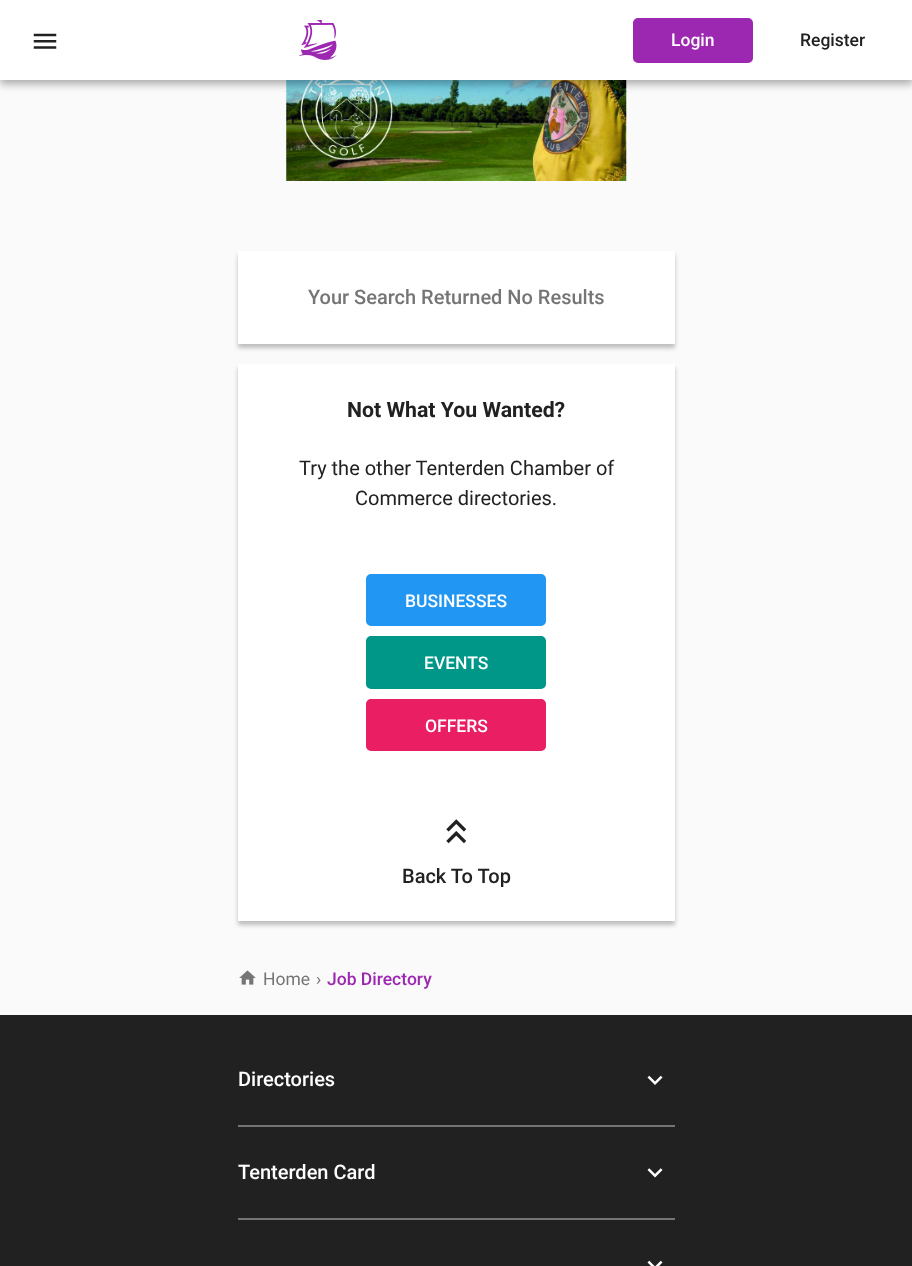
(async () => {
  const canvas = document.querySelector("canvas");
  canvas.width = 912;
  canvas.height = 1266;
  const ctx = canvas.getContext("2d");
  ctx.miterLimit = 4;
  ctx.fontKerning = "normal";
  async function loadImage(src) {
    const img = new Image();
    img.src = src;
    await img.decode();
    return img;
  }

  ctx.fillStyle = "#fafafa";
  ctx.fillRect(0, 0, 912, 1266);
  ctx.drawImage(await loadImage("img/3.png"), 286, 80, 341, 101);
  ctx.fillStyle = "rgba(0, 0, 0, 0.32)";
  ctx.filter = "blur(4px)";
  ctx.beginPath();
  ctx.rect(0, 4, 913, 80);
  ctx.fill();
  ctx.filter = "none";
  ctx.fillStyle = "#ffffff";
  ctx.fillRect(0, 0, 912, 80);
  ctx.drawImage(await loadImage("img/1.png"), 298, 20, 39, 40);
  ctx.drawImage(await loadImage("img/2.png"), 33, 33, 24, 16);
  ctx.fillStyle = "#9c27b0";
  ctx.beginPath();
  ctx.roundRect(634.5, 19.5, 117, 42, 3.5);
  ctx.fill();
  ctx.strokeStyle = "#9c27b0";
  ctx.lineWidth = 3;
  ctx.stroke();
  ctx.fillStyle = "rgba(0, 0, 0, 0.24)";
  ctx.filter = "blur(2px)";
  ctx.beginPath();
  ctx.rect(238, 255, 437, 93);
  ctx.fill();
  ctx.filter = "none";
  ctx.fillStyle = "#ffffff";
  ctx.fillRect(238, 251, 437, 93);
  ctx.fillStyle = "rgba(0, 0, 0, 0.24)";
  ctx.filter = "blur(2px)";
  ctx.beginPath();
  ctx.rect(238, 368, 437, 557);
  ctx.fill();
  ctx.filter = "none";
  ctx.fillStyle = "#ffffff";
  ctx.fillRect(238, 364, 437, 557);
  ctx.fillStyle = "#2196f3";
  ctx.beginPath();
  ctx.roundRect(367.5, 575.5, 177, 49, 3.5);
  ctx.fill();
  ctx.strokeStyle = "#2196f3";
  ctx.stroke();
  ctx.fillStyle = "#009688";
  ctx.beginPath();
  ctx.roundRect(367.5, 637.5, 177, 50, 3.5);
  ctx.fill();
  ctx.strokeStyle = "#009688";
  ctx.stroke();
  ctx.fillStyle = "#e91e63";
  ctx.beginPath();
  ctx.roundRect(367.5, 700.5, 177, 49, 3.5);
  ctx.fill();
  ctx.strokeStyle = "#e91e63";
  ctx.stroke();
  ctx.drawImage(await loadImage("img/4.png"), 446, 819, 21, 25);
  ctx.drawImage(await loadImage("img/5.png"), 239, 970, 17, 15);
  ctx.fillStyle = "#212121";
  ctx.fillRect(0, 1015, 912, 251);
  ctx.fillStyle = "#757575";
  ctx.fillRect(238, 1125, 437, 2);
  ctx.drawImage(await loadImage("img/6.png"), 647, 1075, 16, 10);
  ctx.fillRect(238, 1218, 437, 2);
  ctx.drawImage(await loadImage("img/7.png"), 647, 1168, 16, 10);
  ctx.drawImage(await loadImage("img/8.png"), 647, 1260, 16, 6);
  ctx.font = "500 17.5px Roboto";
  ctx.fillStyle = "#ffffff";
  ctx.fillText("Login", 671, 46);
  ctx.fillStyle = "#212121";
  ctx.fillText("Register", 800, 46);
  ctx.font = "500 20px Roboto";
  ctx.fillStyle = "#757575";
  ctx.fillText("Your Search Returned No Results", 308, 304);
  ctx.font = "bold 21.25px Roboto";
  ctx.fillStyle = "#212121";
  ctx.fillText("Not What You Wanted?", 347, 417);
  ctx.font = "20px Roboto";
  ctx.fillText("Try the other Tenterden Chamber of", 299, 475);
  ctx.fillText("Commerce directories.", 355, 505);
  ctx.font = "500 17.5px Roboto";
  ctx.fillStyle = "#ffffff";
  for (const [text, x, y] of [
    ["BUSINESSES", 405, 607],
    ["EVENTS", 424, 669],
    ["OFFERS", 425, 732],
  ]) {
    ctx.fillText(text, x, y);
  }
  ctx.font = "500 20px Roboto";
  ctx.fillStyle = "#212121";
  ctx.fillText("Back To Top", 402, 883);
  ctx.font = "17.5px Roboto";
  ctx.fillStyle = "#757575";
  ctx.fillText("Home", 263, 985);
  ctx.fillText("›", 316, 985);
  ctx.font = "500 17.5px Roboto";
  ctx.fillStyle = "#9c27b0";
  ctx.fillText("Job Directory", 327, 985);
  ctx.font = "500 20px Roboto";
  ctx.fillStyle = "#ffffff";
  ctx.fillText("Directories", 238, 1086);
  ctx.fillText("Tenterden Card", 238, 1179);
})();
